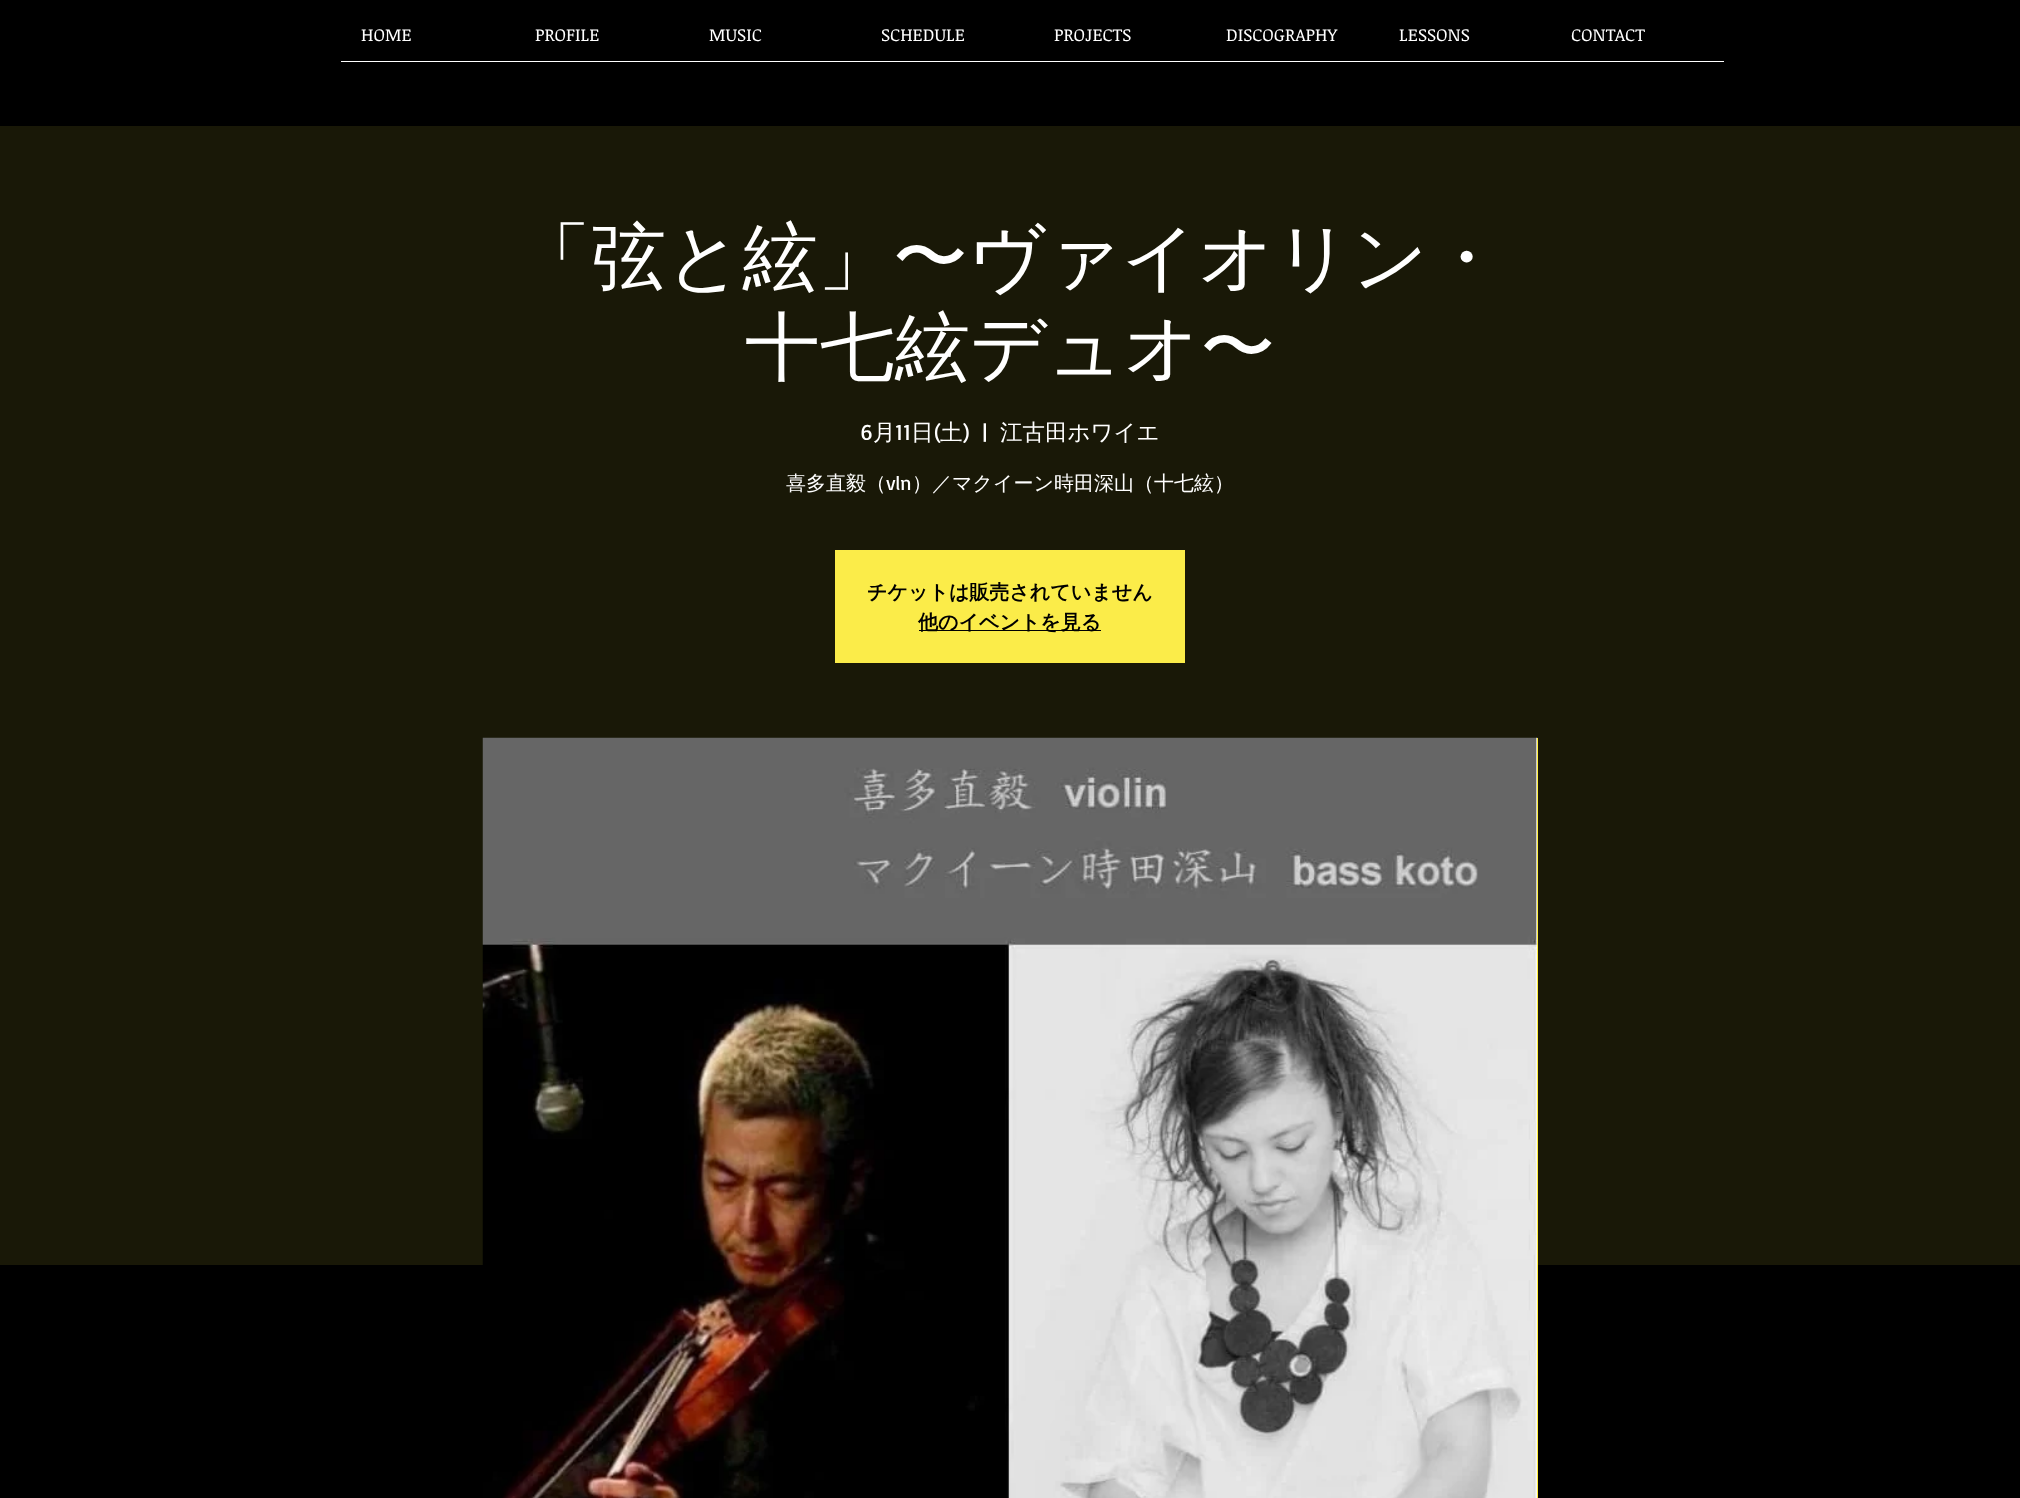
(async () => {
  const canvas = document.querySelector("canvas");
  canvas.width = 2020;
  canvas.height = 1498;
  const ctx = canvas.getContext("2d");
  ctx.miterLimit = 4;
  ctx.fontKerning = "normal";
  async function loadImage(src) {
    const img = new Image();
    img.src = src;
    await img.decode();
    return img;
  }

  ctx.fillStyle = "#000000";
  ctx.fillRect(0, 0, 2020, 1498);
  for (const [x, y, w, h, color] of [
    [341, 61, 1383, 1, "#ffffff"],
    [0, 126, 2020, 1139, "#191807"],
    [835, 550, 350, 113, "#fbec49"],
    [919, 630, 182, 1, "#000000"],
    [1537, 738, 1, 760, "#ffe900"],
  ]) {
    ctx.fillStyle = color;
    ctx.fillRect(x, y, w, h);
  }
  ctx.drawImage(await loadImage("img/1.png"), 482, 737, 1056, 761);
  ctx.font = "17.5px Noticia Text";
  ctx.fillStyle = "#ffffff";
  for (const [text, x, y] of [
    ["HOME", 361, 41],
    ["PROFILE", 535, 41],
    ["MUSIC", 709, 41],
    ["SCHEDULE", 881, 41],
    ["PROJECTS", 1054, 41],
    ["DISCOGRAPHY", 1226, 41],
    ["LESSONS", 1399, 41],
    ["CONTACT", 1571, 41],
  ]) {
    ctx.fillText(text, x, y);
  }
  ctx.font = "500 75px WenQuanYi Zen Hei";
  ctx.fillText("「弦と絃」〜ヴァイオリン・", 516, 283);
  ctx.fillText("十七絃デュオ〜", 745, 373);
  ctx.font = "22.5px Basic";
  ctx.fillText("6", 860, 440);
  ctx.font = "500 22.5px WenQuanYi Zen Hei";
  ctx.fillText("月", 873, 440);
  ctx.font = "22.5px Basic";
  ctx.fillText("11", 895, 440);
  ctx.font = "500 22.5px WenQuanYi Zen Hei";
  ctx.fillText("日", 911, 440);
  ctx.font = "22.5px Basic";
  ctx.fillText("(", 934, 440);
  ctx.font = "500 22.5px WenQuanYi Zen Hei";
  ctx.fillText("土", 940, 440);
  ctx.font = "22.5px Basic";
  ctx.fillText(")", 963, 440);
  ctx.fillText("|", 982, 440);
  ctx.font = "500 22.5px WenQuanYi Zen Hei";
  ctx.fillText("江古田ホワイエ", 1000, 440);
  ctx.font = "500 20px WenQuanYi Zen Hei";
  ctx.fillText("喜多直毅（", 786, 490);
  ctx.font = "20px Basic";
  ctx.fillText("vln", 886, 490);
  ctx.font = "500 20px WenQuanYi Zen Hei";
  ctx.fillText("）／マクイーン時田深山（十七絃）", 912, 490);
  ctx.font = "bold 20px WenQuanYi Zen Hei";
  ctx.fillStyle = "#000000";
  ctx.fillText("チケットは販売されていません", 867, 599);
  ctx.fillText("他のイベントを見る", 918, 629);
})();
